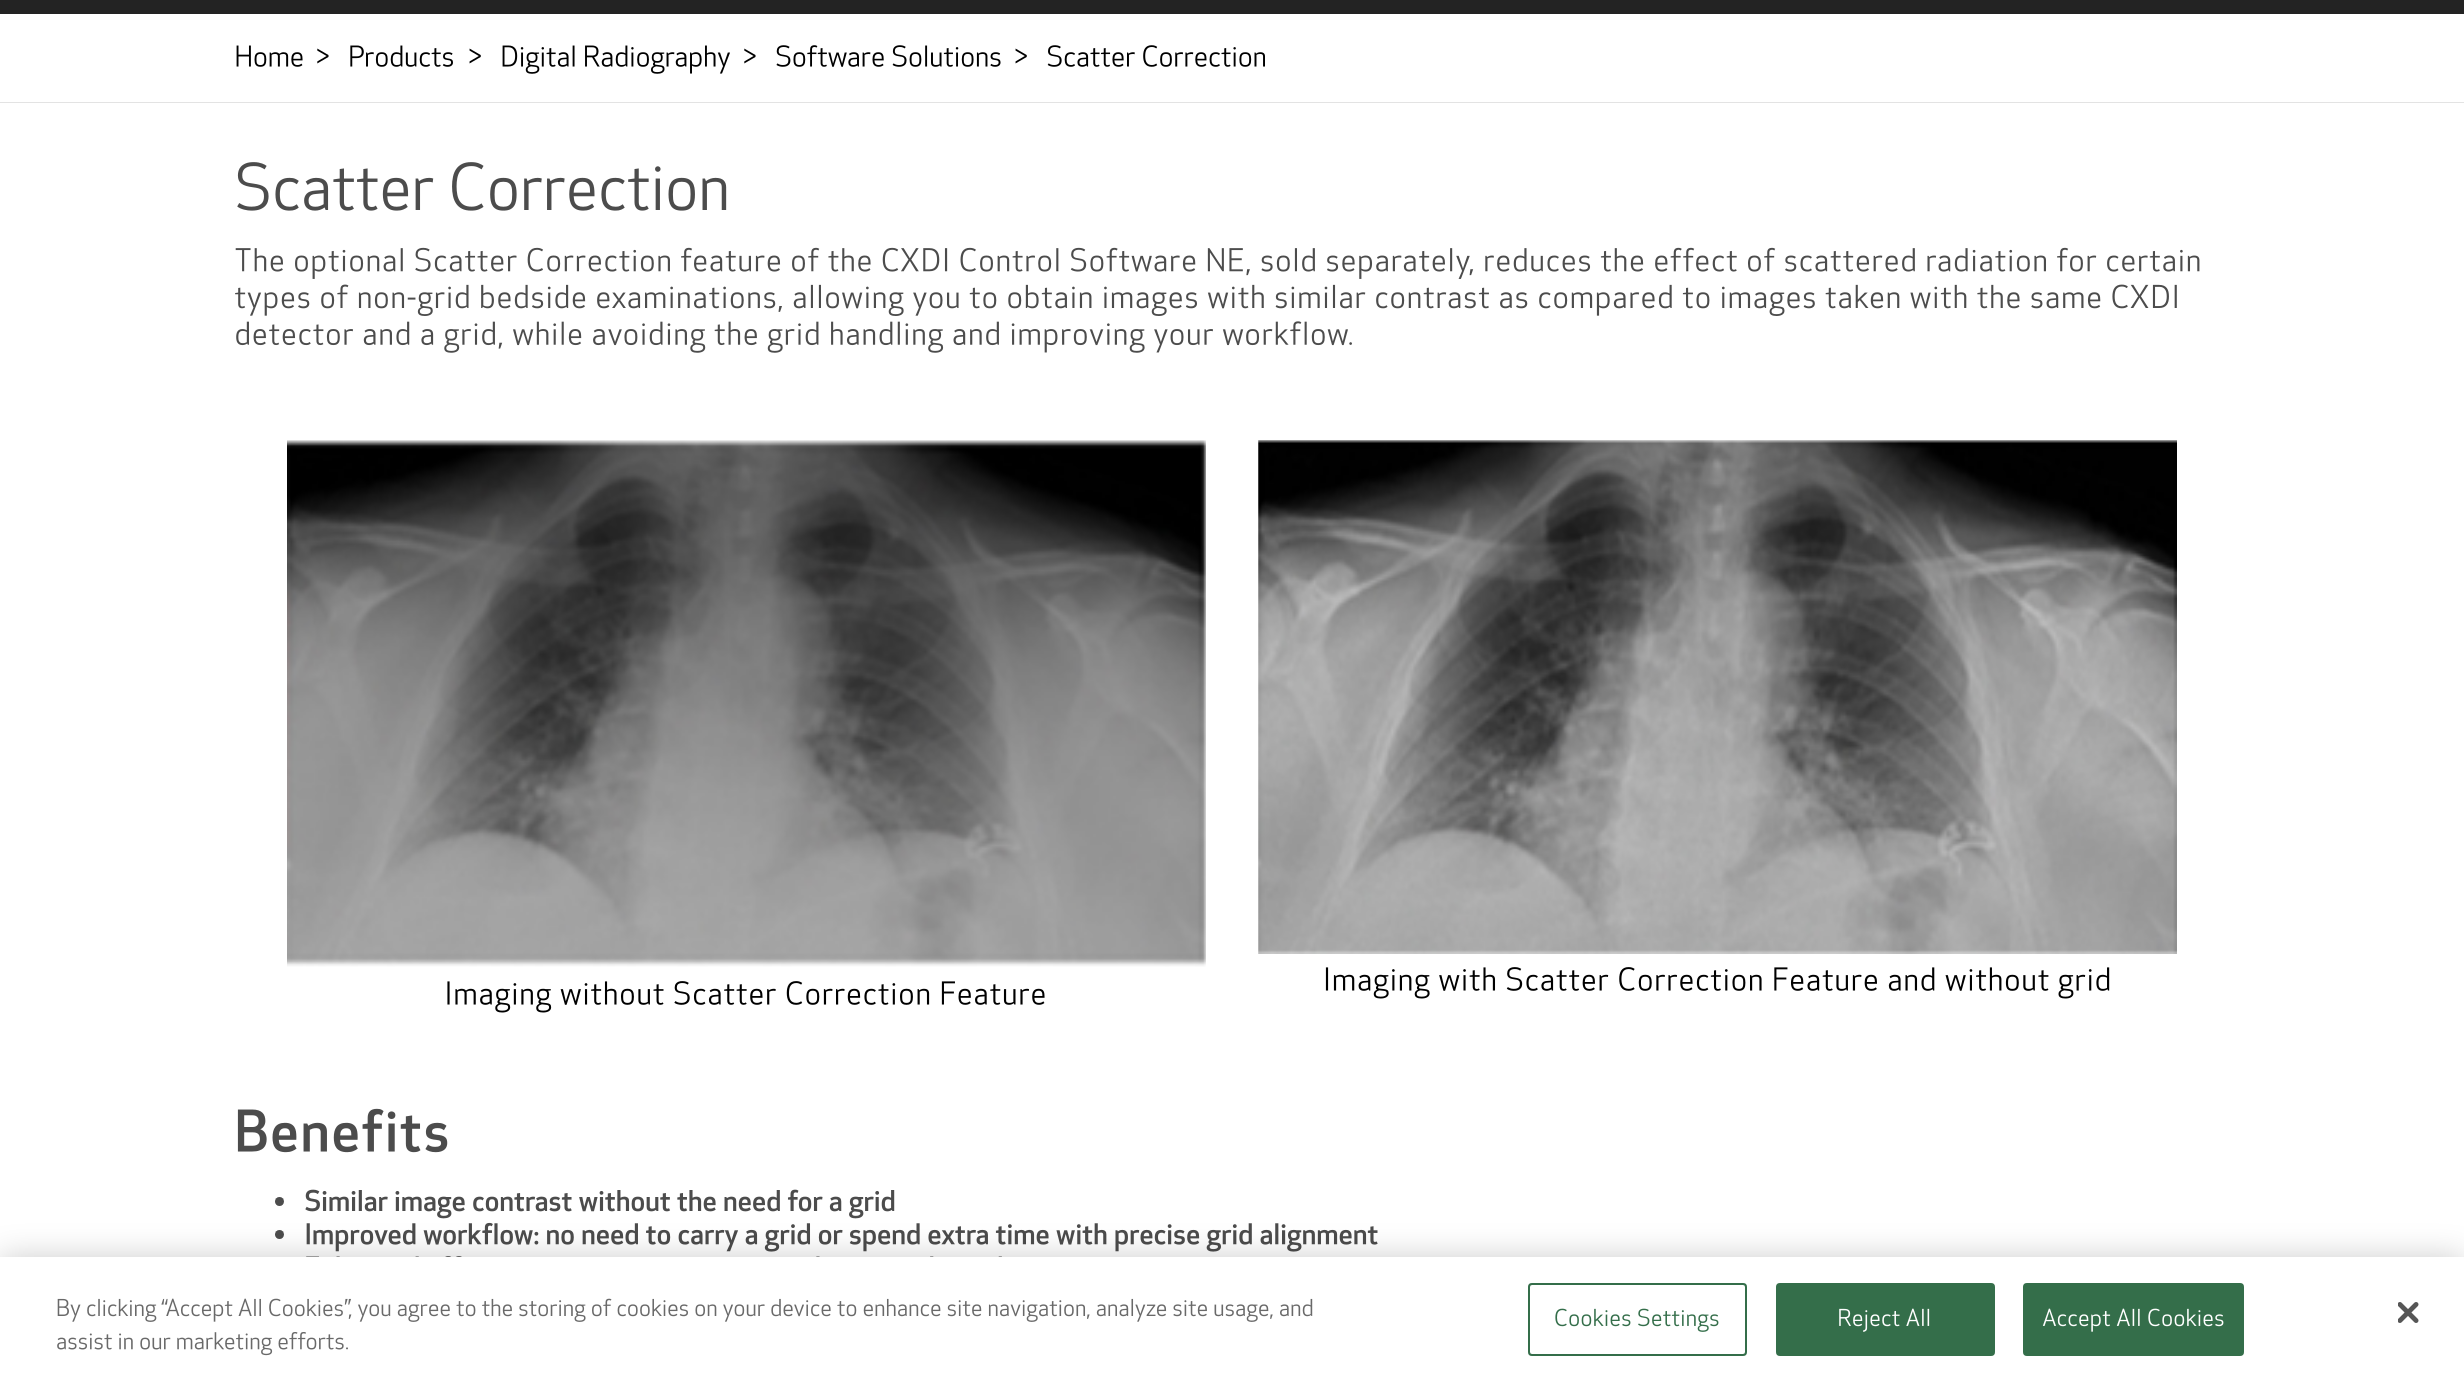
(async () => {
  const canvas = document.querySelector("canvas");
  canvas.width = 2464;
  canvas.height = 1377;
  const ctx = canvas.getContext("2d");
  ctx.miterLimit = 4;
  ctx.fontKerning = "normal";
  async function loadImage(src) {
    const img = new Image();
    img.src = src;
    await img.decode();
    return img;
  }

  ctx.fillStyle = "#ffffff";
  ctx.fillRect(0, 0, 2464, 1377);
  ctx.fillStyle = "#232323";
  ctx.fillRect(0, 0, 2464, 14);
  ctx.fillStyle = "#e3e3e3";
  ctx.fillRect(0, 102, 2464, 1);
  ctx.drawImage(await loadImage("img/1.png"), 236, 45, 67, 22);
  ctx.drawImage(await loadImage("img/2.png"), 317, 48, 12, 16);
  ctx.drawImage(await loadImage("img/3.png"), 350, 45, 103, 22);
  ctx.drawImage(await loadImage("img/4.png"), 469, 48, 12, 16);
  ctx.drawImage(await loadImage("img/5.png"), 502, 45, 228, 29);
  ctx.drawImage(await loadImage("img/2.png"), 744, 48, 12, 16);
  ctx.drawImage(await loadImage("img/6.png"), 776, 45, 225, 22);
  ctx.drawImage(await loadImage("img/4.png"), 1015, 48, 12, 16);
  ctx.drawImage(await loadImage("img/7.png"), 1047, 45, 218, 22);
  ctx.drawImage(await loadImage("img/8.png"), 237, 162, 490, 49);
  ctx.drawImage(await loadImage("img/9.png"), 235, 247, 1965, 32);
  ctx.drawImage(await loadImage("img/10.png"), 235, 284, 1942, 32);
  ctx.drawImage(await loadImage("img/11.png"), 236, 321, 1116, 32);
  ctx.drawImage(await loadImage("img/12.png"), 287, 440, 919, 527);
  ctx.drawImage(await loadImage("img/13.png"), 447, 981, 598, 32);
  ctx.drawImage(await loadImage("img/14.png"), 1258, 440, 919, 514);
  ctx.drawImage(await loadImage("img/15.png"), 1325, 967, 785, 32);
  ctx.drawImage(await loadImage("img/16.png"), 237, 1108, 211, 45);
  ctx.fillStyle = "#4c4c4c";
  ctx.beginPath();
  ctx.arc(279.5, 1201.5, 4.5, 0, Math.PI * 2);
  ctx.fill();
  ctx.drawImage(await loadImage("img/17.png"), 305, 1189, 590, 30);
  ctx.beginPath();
  ctx.arc(279.5, 1234.5, 4.5, 0, Math.PI * 2);
  ctx.fill();
  ctx.drawImage(await loadImage("img/18.png"), 306, 1222, 1072, 30);
  ctx.drawImage(await loadImage("img/19.png"), 306, 1256, 696, 1);
  ctx.fillStyle = "rgba(0, 0, 0, 0.2)";
  ctx.filter = "blur(16px)";
  ctx.beginPath();
  ctx.rect(0, 1257, 2464, 120);
  ctx.fill();
  ctx.filter = "none";
  ctx.fillStyle = "#ffffff";
  ctx.fillRect(0, 1257, 2464, 120);
  ctx.drawImage(await loadImage("img/20.png"), 57, 1298, 1256, 24);
  ctx.drawImage(await loadImage("img/21.png"), 57, 1332, 291, 24);
  ctx.beginPath();
  ctx.roundRect(1529, 1284, 217, 71, 3);
  ctx.strokeStyle = "#346e4a";
  ctx.lineWidth = 2;
  ctx.stroke();
  ctx.drawImage(await loadImage("img/22.png"), 1555, 1308, 164, 24);
  ctx.fillStyle = "#346e4a";
  ctx.beginPath();
  ctx.roundRect(1777, 1284, 217, 71, 3);
  ctx.fill();
  ctx.stroke();
  ctx.drawImage(await loadImage("img/23.png"), 1839, 1308, 91, 24);
  ctx.beginPath();
  ctx.roundRect(2024, 1284, 219, 71, 3);
  ctx.fill();
  ctx.stroke();
  ctx.drawImage(await loadImage("img/24.png"), 2042, 1308, 182, 24);
  ctx.drawImage(await loadImage("img/25.png"), 2398, 1302, 21, 21);
})();
